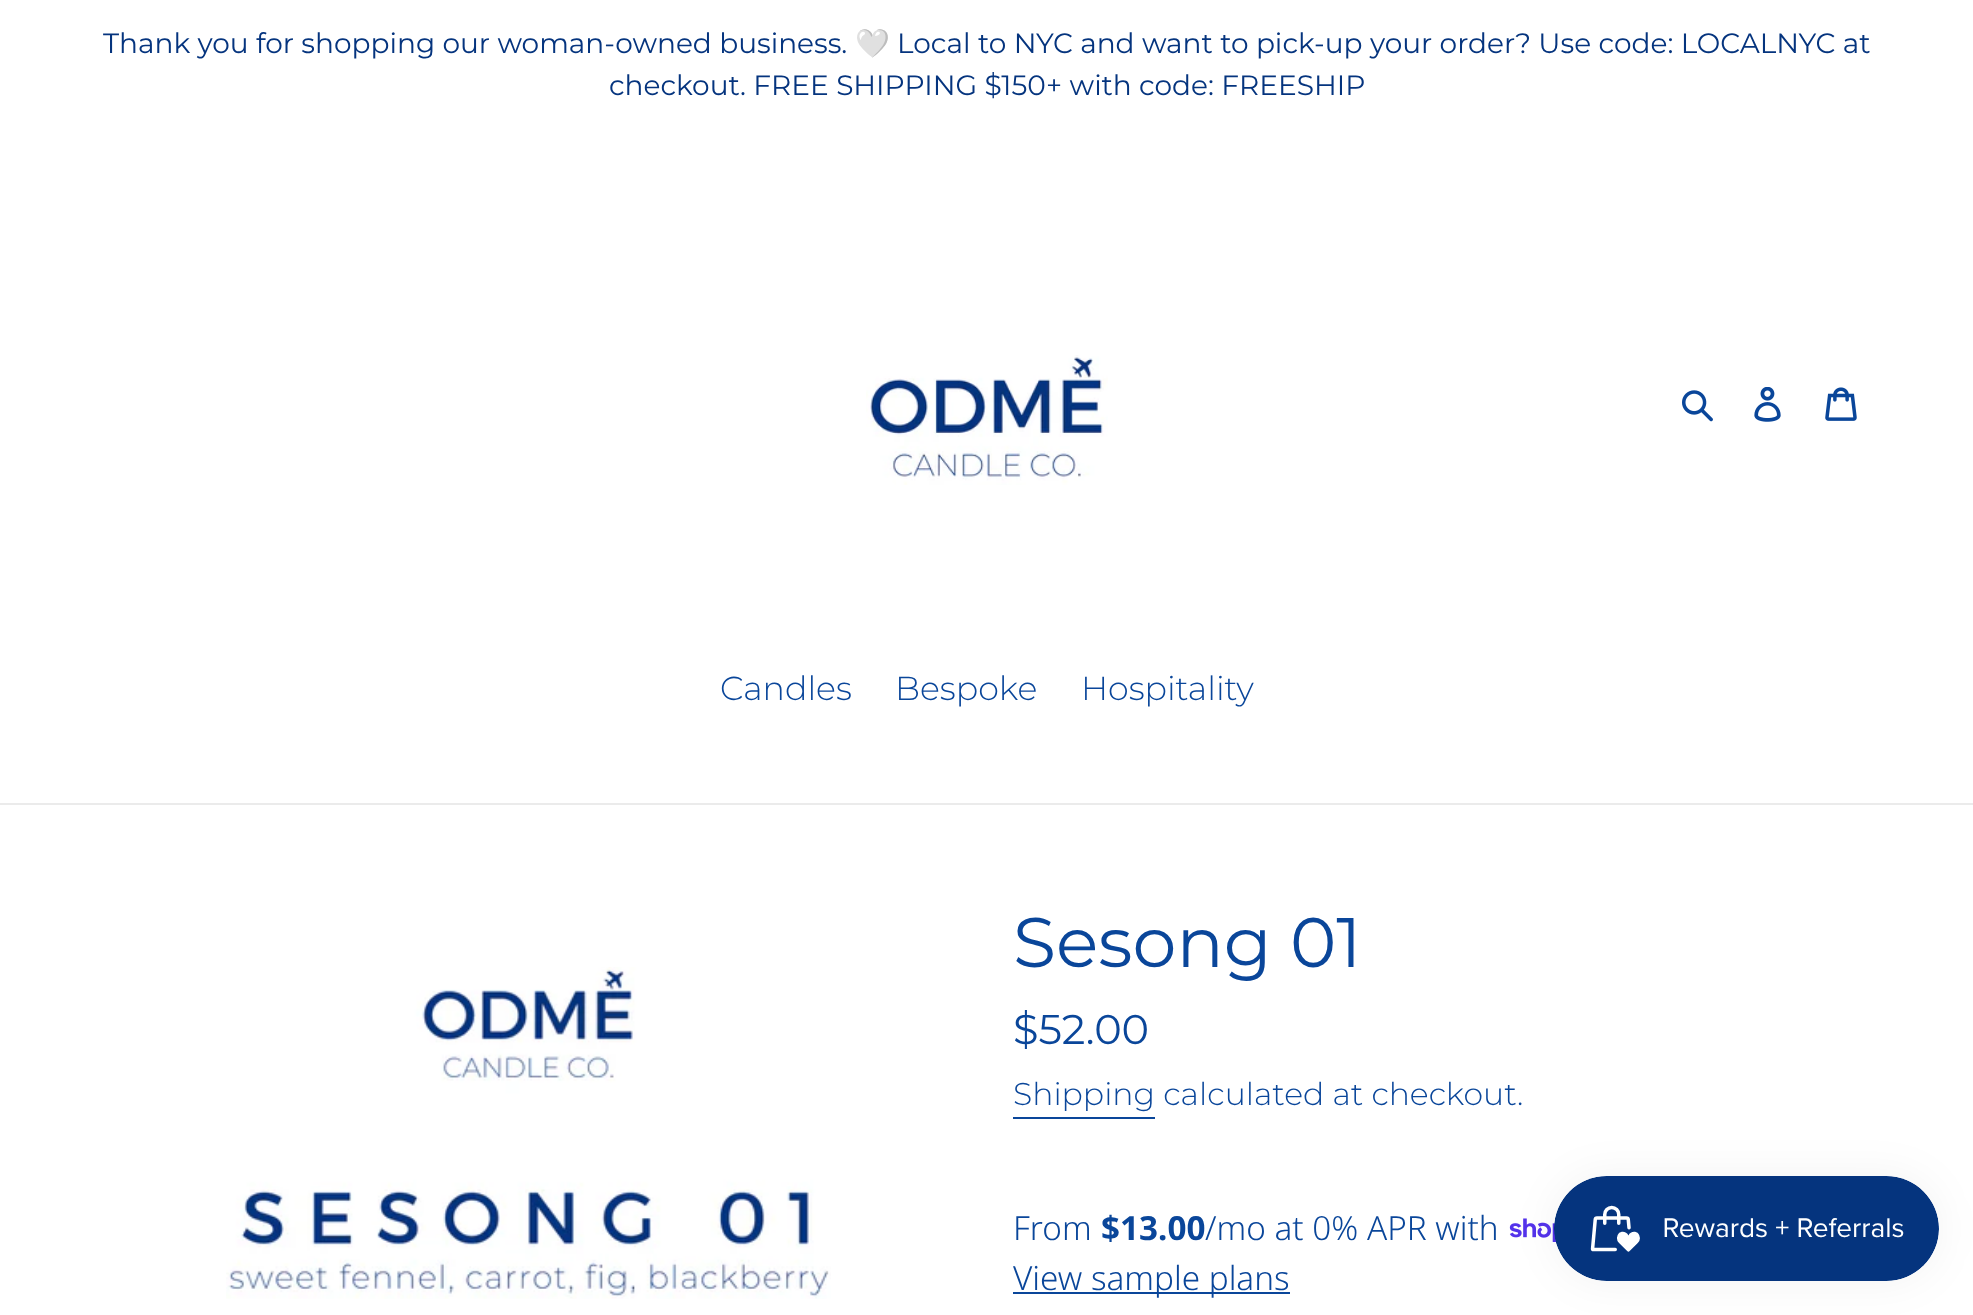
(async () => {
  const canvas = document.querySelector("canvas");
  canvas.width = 1973;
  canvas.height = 1315;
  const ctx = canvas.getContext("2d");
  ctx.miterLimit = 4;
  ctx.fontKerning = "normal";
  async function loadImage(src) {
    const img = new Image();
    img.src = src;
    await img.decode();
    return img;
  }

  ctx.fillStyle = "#ffffff";
  ctx.fillRect(0, 0, 1973, 1315);
  ctx.drawImage(await loadImage("img/1.png"), 866, 355, 242, 130);
  ctx.drawImage(await loadImage("img/2.png"), 1682, 390, 31, 32);
  ctx.drawImage(await loadImage("img/3.png"), 1754, 387, 27, 35);
  ctx.drawImage(await loadImage("img/4.png"), 1825, 387, 32, 34);
  ctx.fillStyle = "#ebebeb";
  ctx.fillRect(0, 803, 1973, 2);
  ctx.drawImage(await loadImage("img/5.png"), 226, 967, 605, 332);
  ctx.fillStyle = "#0a469a";
  ctx.fillRect(1013, 1117, 142, 2);
  ctx.drawImage(await loadImage("img/6.png"), 1509, 1218, 47, 24);
  ctx.fillRect(1013, 1292, 277, 2);
  ctx.fillStyle = "rgba(0, 0, 0, 0.05)";
  ctx.filter = "blur(22px)";
  ctx.beginPath();
  ctx.roundRect(1554, 1176, 385, 105, 52.5);
  ctx.fill();
  ctx.filter = "none";
  ctx.drawImage(await loadImage("img/7.png"), 1554, 1176, 385, 105);
  ctx.font = "28px Montserrat";
  ctx.fillStyle = "#05347e";
  ctx.fillText("Thank you for shopping our woman-owned business.", 103, 53);
  ctx.font = "28px Noto Color Emoji";
  ctx.fillText("🤍", 855, 53);
  ctx.font = "28px Montserrat";
  ctx.fillText("Local to NYC and want to pick-up your order? Use code: LOCALNYC at", 897, 53);
  ctx.fillText("checkout. FREE SHIPPING $150+ with code: FREESHIP", 609, 95);
  ctx.font = "300 33.25px Montserrat";
  ctx.fillStyle = "#0a469a";
  for (const [text, x, y] of [
    ["Candles", 720, 700],
    ["Bespoke", 895, 700],
    ["Hospitality", 1081, 700],
  ]) {
    ctx.fillText(text, x, y);
  }
  ctx.font = "70px Montserrat";
  ctx.fillText("Sesong 01", 1013, 967);
  ctx.font = "41.5px Montserrat";
  ctx.fillText("$52.00", 1013, 1044);
  ctx.font = "300 31.5px Montserrat";
  ctx.fillText("Shipping calculated at checkout.", 1013, 1105);
  ctx.font = "300 33.25px Noto Sans";
  ctx.fillText("From", 1013, 1240);
  ctx.font = "bold 33.25px Noto Sans";
  ctx.fillText("$13.00", 1101, 1240);
  ctx.font = "300 33.25px Noto Sans";
  ctx.fillText("/mo at 0% APR with", 1205, 1240);
  ctx.fillText("View sample plans", 1013, 1290);
})();
